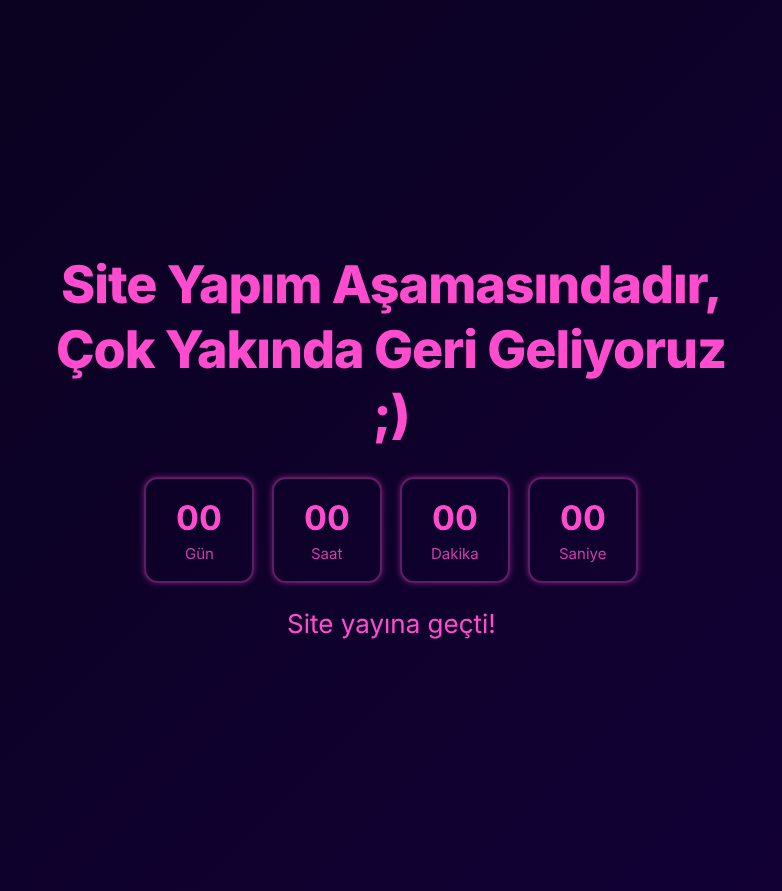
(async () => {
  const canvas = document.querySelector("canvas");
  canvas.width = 782;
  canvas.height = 891;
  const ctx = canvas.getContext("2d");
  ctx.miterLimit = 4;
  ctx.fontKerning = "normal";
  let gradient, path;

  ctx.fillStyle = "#ffffff";
  ctx.fillRect(0, 0, 782, 891);
  gradient = ctx.createLinearGradient(-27, 27, 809, 864);
  gradient.addColorStop(0, "#0a0220");
  gradient.addColorStop(1, "#120035");
  ctx.fillStyle = gradient;
  ctx.fillRect(0, 0, 782, 891);
  ctx.save();
  path = new Path2D("M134 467H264V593H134ZM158 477H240C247.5 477 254 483.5 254 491V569C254 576.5 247.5 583 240 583H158C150.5 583 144 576.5 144 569V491C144 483.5 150.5 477 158 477Z");
  ctx.clip(path, "evenodd");
  ctx.fillStyle = "rgba(255, 76, 207, 0.4)";
  ctx.filter = "blur(3px)";
  ctx.beginPath();
  ctx.roundRect(144, 477, 110, 106, 14);
  ctx.fill();
  ctx.filter = "none";
  ctx.restore();
  ctx.beginPath();
  ctx.roundRect(145, 478, 108, 104, 13);
  ctx.strokeStyle = "rgba(255, 76, 207, 0.35)";
  ctx.lineWidth = 2;
  ctx.stroke();
  ctx.save();
  path = new Path2D("M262 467H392V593H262ZM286 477H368C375.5 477 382 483.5 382 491V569C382 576.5 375.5 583 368 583H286C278.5 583 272 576.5 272 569V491C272 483.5 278.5 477 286 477Z");
  ctx.clip(path, "evenodd");
  ctx.fillStyle = "rgba(255, 76, 207, 0.4)";
  ctx.filter = "blur(3px)";
  ctx.beginPath();
  ctx.roundRect(272, 477, 110, 106, 14);
  ctx.fill();
  ctx.filter = "none";
  ctx.restore();
  ctx.beginPath();
  ctx.roundRect(273, 478, 108, 104, 13);
  ctx.stroke();
  ctx.save();
  path = new Path2D("M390 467H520V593H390ZM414 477H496C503.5 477 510 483.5 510 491V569C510 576.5 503.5 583 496 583H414C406.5 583 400 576.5 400 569V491C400 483.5 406.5 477 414 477Z");
  ctx.clip(path, "evenodd");
  ctx.fillStyle = "rgba(255, 76, 207, 0.4)";
  ctx.filter = "blur(3px)";
  ctx.beginPath();
  ctx.roundRect(400, 477, 110, 106, 14);
  ctx.fill();
  ctx.filter = "none";
  ctx.restore();
  ctx.beginPath();
  ctx.roundRect(401, 478, 108, 104, 13);
  ctx.stroke();
  ctx.save();
  path = new Path2D("M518 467H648V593H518ZM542 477H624C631.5 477 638 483.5 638 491V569C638 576.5 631.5 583 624 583H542C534.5 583 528 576.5 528 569V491C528 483.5 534.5 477 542 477Z");
  ctx.clip(path, "evenodd");
  ctx.fillStyle = "rgba(255, 76, 207, 0.4)";
  ctx.filter = "blur(3px)";
  ctx.beginPath();
  ctx.roundRect(528, 477, 110, 106, 14);
  ctx.fill();
  ctx.filter = "none";
  ctx.restore();
  ctx.beginPath();
  ctx.roundRect(529, 478, 108, 104, 13);
  ctx.stroke();
  ctx.letterSpacing = "-1.05px";
  ctx.font = "800 52px Inter";
  ctx.fillStyle = "#ff4ccf";
  for (const [text, x, y] of [
    ["Site Yapım Aşamasındadır,", 61, 303],
    ["Çok Yakında Geri Geliyoruz", 56, 368],
    [";)", 373, 433],
  ]) {
    ctx.fillText(text, x, y);
  }
  ctx.letterSpacing = "0px";
  ctx.font = "bold 34px Inter";
  ctx.fillText("00", 176, 530);
  ctx.font = "15px Inter";
  ctx.fillStyle = "#cf3dae";
  ctx.fillText("Gün", 185, 559);
  ctx.font = "bold 34px Inter";
  ctx.fillStyle = "#ff4ccf";
  ctx.fillText("00", 304, 530);
  ctx.font = "15px Inter";
  ctx.fillStyle = "#cf3dae";
  ctx.fillText("Saat", 311, 559);
  ctx.font = "bold 34px Inter";
  ctx.fillStyle = "#ff4ccf";
  ctx.fillText("00", 432, 530);
  ctx.font = "15px Inter";
  ctx.fillStyle = "#cf3dae";
  ctx.fillText("Dakika", 431, 559);
  ctx.font = "bold 34px Inter";
  ctx.fillStyle = "#ff4ccf";
  ctx.fillText("00", 560, 530);
  ctx.font = "15px Inter";
  ctx.fillStyle = "#cf3dae";
  ctx.fillText("Saniye", 559, 559);
  ctx.font = "26px Inter";
  ctx.fillStyle = "#ff4ccf";
  ctx.fillText("Site yayına geçti!", 287, 633);
})();
